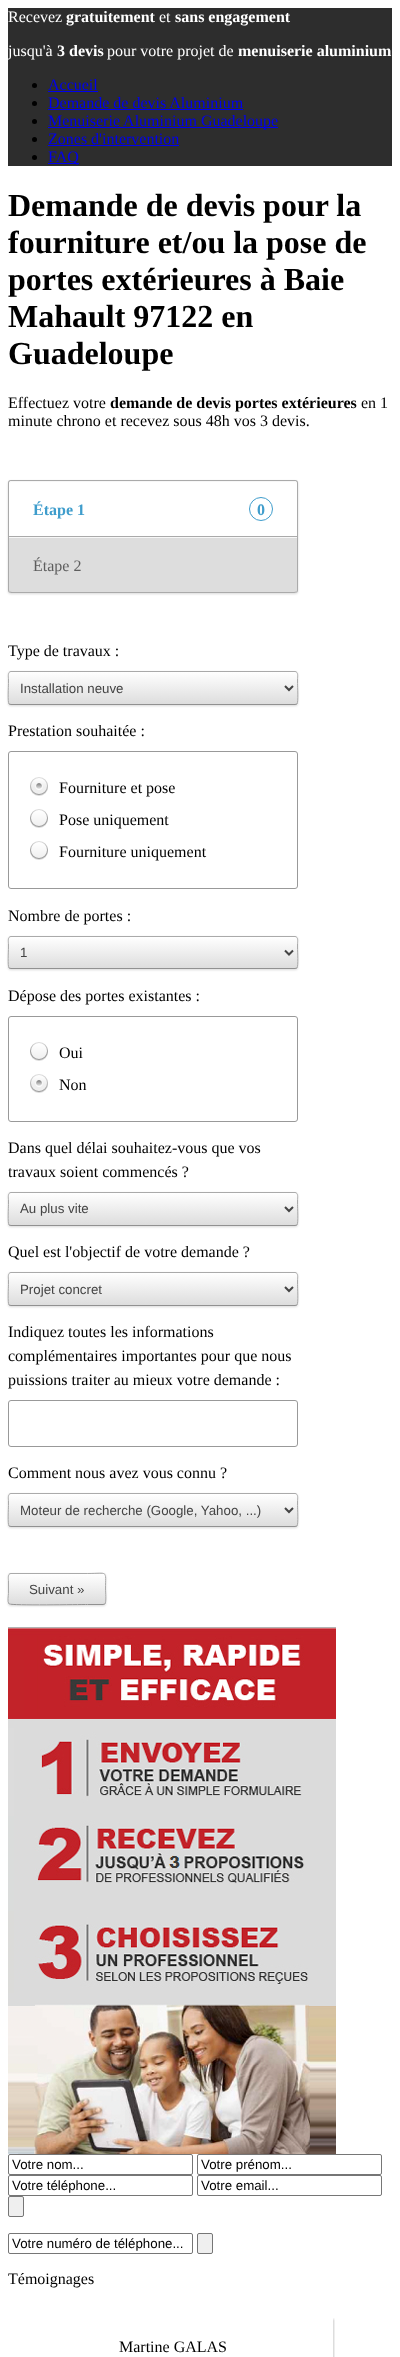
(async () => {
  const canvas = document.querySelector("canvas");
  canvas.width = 400;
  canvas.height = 2357;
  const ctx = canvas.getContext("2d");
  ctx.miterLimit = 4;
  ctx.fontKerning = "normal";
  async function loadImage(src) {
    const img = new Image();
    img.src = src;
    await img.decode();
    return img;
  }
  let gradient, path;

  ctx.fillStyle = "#ffffff";
  ctx.fillRect(0, 0, 400, 2357);
  ctx.fillStyle = "#2d2d2d";
  ctx.fillRect(8, 8, 384, 158);
  ctx.fillStyle = "#000000";
  ctx.beginPath();
  ctx.arc(34.5, 85.5, 2.5, 0, Math.PI * 2);
  ctx.fill();
  ctx.fillStyle = "#0000ee";
  ctx.fillRect(48, 91, 50, 1);
  ctx.fillStyle = "#000000";
  ctx.beginPath();
  ctx.arc(34.5, 103.5, 2.5, 0, Math.PI * 2);
  ctx.fill();
  ctx.fillStyle = "#0000ee";
  ctx.fillRect(48, 109, 195, 1);
  ctx.fillStyle = "#000000";
  ctx.beginPath();
  ctx.arc(34.5, 121.5, 2.5, 0, Math.PI * 2);
  ctx.fill();
  ctx.fillStyle = "#0000ee";
  ctx.fillRect(48, 127, 230, 1);
  ctx.fillStyle = "#000000";
  ctx.beginPath();
  ctx.arc(34.5, 139.5, 2.5, 0, Math.PI * 2);
  ctx.fill();
  ctx.fillStyle = "#0000ee";
  ctx.fillRect(48, 145, 131, 1);
  ctx.fillStyle = "#000000";
  ctx.beginPath();
  ctx.arc(34.5, 157.5, 2.5, 0, Math.PI * 2);
  ctx.fill();
  ctx.fillStyle = "#0000ee";
  ctx.fillRect(48, 163, 31, 1);
  ctx.fillStyle = "rgba(0, 0, 0, 0.15)";
  ctx.filter = "blur(1px)";
  ctx.beginPath();
  ctx.roundRect(8, 481, 290, 113, 3);
  ctx.fill();
  ctx.filter = "none";
  ctx.fillStyle = "#aaaaaa";
  path = new Path2D("M11 480H295C297 480 298 481 298 483V590C298 592 297 593 295 593H11C9 593 8 592 8 590V483C8 481 9 480 11 480ZM11 481H295C296 481 297 482 297 483V590C297 592 296 593 295 593H11C10 593 9 592 9 590V483C9 482 10 481 11 481Z");
  ctx.fill(path, "evenodd");
  ctx.fillStyle = "#ffffff";
  ctx.beginPath();
  ctx.roundRect(9, 481, 288, 56, [3, 3, 0, 0]);
  ctx.fill();
  ctx.fillStyle = "#f7f7f7";
  path = new Path2D("M12 481H294C296 481 297 482 297 484C297 483 296 482 294 482H12C10 482 9 483 9 484C9 482 10 481 12 481Z");
  ctx.fill(path);
  ctx.fillStyle = "#aaaaaa";
  ctx.fillRect(9, 536, 288, 1);
  ctx.beginPath();
  ctx.arc(261, 509, 11.5, 0, Math.PI * 2);
  ctx.strokeStyle = "#3f9dcc";
  ctx.stroke();
  ctx.fillStyle = "#dddddd";
  ctx.beginPath();
  ctx.roundRect(9, 537, 288, 56, [0, 0, 3, 3]);
  ctx.fill();
  ctx.fillStyle = "#f7f7f7";
  ctx.fillRect(9, 537, 288, 1);
  ctx.fillStyle = "#aaaaaa";
  path = new Path2D("M297 590C297 591 296 592 294 592H12C10 592 9 591 9 590V591C10 593 11 593 12 593H294C296 593 297 592 297 590Z");
  ctx.fill(path);
  ctx.fillStyle = "rgba(0, 0, 0, 0.15)";
  ctx.filter = "blur(1px)";
  ctx.beginPath();
  ctx.roundRect(8, 672, 290, 34, 3);
  ctx.fill();
  ctx.filter = "none";
  ctx.save();
  ctx.beginPath();
  ctx.roundRect(8, 671, 290, 34, 3);
  ctx.clip();
  gradient = ctx.createLinearGradient(153, 672, 153, 704);
  gradient.addColorStop(0, "#ffffff");
  gradient.addColorStop(1, "#dddddd");
  ctx.fillStyle = gradient;
  ctx.fillRect(8, 672, 290, 32);
  ctx.restore();
  path = new Path2D("M297 704L295 704.5H11L9 704");
  ctx.strokeStyle = "#919191";
  ctx.stroke(path);
  path = new Path2D("M9 704C7.5 702 8.5 686.5 8.5 683.5V678.5C8.5 677 7.5 671.5 11 671.5H295C298.5 671.5 297.5 677 297.5 678.5V683.5C297.5 686.5 298.5 702 297 704");
  ctx.strokeStyle = "#aaaaaa";
  ctx.stroke(path);
  path = new Path2D("M285 686L289 690L293 686");
  ctx.strokeStyle = "#444444";
  ctx.lineWidth = 2;
  ctx.stroke(path);
  ctx.beginPath();
  ctx.roundRect(8.5, 751.5, 289, 137, 2.5);
  ctx.strokeStyle = "#999999";
  ctx.lineWidth = 1;
  ctx.stroke();
  ctx.drawImage(await loadImage("img/1.png"), 30, 777, 18, 19);
  ctx.drawImage(await loadImage("img/2.png"), 30, 809, 18, 19);
  ctx.drawImage(await loadImage("img/2.png"), 30, 841, 18, 19);
  ctx.filter = "blur(1px)";
  ctx.beginPath();
  ctx.roundRect(8, 937, 290, 33, 3);
  ctx.fill();
  ctx.filter = "none";
  ctx.save();
  ctx.beginPath();
  ctx.roundRect(8, 936, 290, 33, 3);
  ctx.clip();
  gradient = ctx.createLinearGradient(153, 937, 153, 968);
  gradient.addColorStop(0, "#ffffff");
  gradient.addColorStop(1, "#dddddd");
  ctx.fillStyle = gradient;
  ctx.fillRect(8, 937, 290, 31);
  ctx.restore();
  path = new Path2D("M297 968L295 968.5H11L9 968");
  ctx.strokeStyle = "#919191";
  ctx.stroke(path);
  path = new Path2D("M9 968C7.5 966 8.5 951 8.5 948V943.5C8.5 941.5 7.5 936.5 11 936.5H295C298.5 936.5 297.5 941.5 297.5 943.5V948C297.5 951 298.5 966 297 968");
  ctx.strokeStyle = "#aaaaaa";
  ctx.stroke(path);
  path = new Path2D("M285 950.5L289 954.5L293 950.5");
  ctx.strokeStyle = "#444444";
  ctx.lineWidth = 2;
  ctx.stroke(path);
  ctx.beginPath();
  ctx.roundRect(8.5, 1016.5, 289, 105, 2.5);
  ctx.strokeStyle = "#999999";
  ctx.lineWidth = 1;
  ctx.stroke();
  ctx.drawImage(await loadImage("img/2.png"), 30, 1042, 18, 19);
  ctx.drawImage(await loadImage("img/1.png"), 30, 1074, 18, 19);
  ctx.filter = "blur(1px)";
  ctx.beginPath();
  ctx.roundRect(8, 1193, 290, 34, 3);
  ctx.fill();
  ctx.filter = "none";
  ctx.save();
  ctx.beginPath();
  ctx.roundRect(8, 1192, 290, 34, 3);
  ctx.clip();
  gradient = ctx.createLinearGradient(153, 1193, 153, 1225);
  gradient.addColorStop(0, "#ffffff");
  gradient.addColorStop(1, "#dddddd");
  ctx.fillStyle = gradient;
  ctx.fillRect(8, 1193, 290, 32);
  ctx.restore();
  path = new Path2D("M297 1225L295 1225.5H11L9 1225");
  ctx.strokeStyle = "#919191";
  ctx.stroke(path);
  path = new Path2D("M9 1225C7.5 1223 8.5 1207.5 8.5 1204.5V1199.5C8.5 1198 7.5 1192.5 11 1192.5H295C298.5 1192.5 297.5 1198 297.5 1199.5V1204.5C297.5 1207.5 298.5 1223 297 1225");
  ctx.strokeStyle = "#aaaaaa";
  ctx.stroke(path);
  path = new Path2D("M285 1207L289 1211L293 1207");
  ctx.strokeStyle = "#444444";
  ctx.lineWidth = 2;
  ctx.stroke(path);
  ctx.filter = "blur(1px)";
  ctx.beginPath();
  ctx.roundRect(8, 1273, 290, 34, 3);
  ctx.fill();
  ctx.filter = "none";
  ctx.save();
  ctx.beginPath();
  ctx.roundRect(8, 1272, 290, 34, 3);
  ctx.clip();
  gradient = ctx.createLinearGradient(153, 1273, 153, 1305);
  gradient.addColorStop(0, "#ffffff");
  gradient.addColorStop(1, "#dddddd");
  ctx.fillStyle = gradient;
  ctx.fillRect(8, 1273, 290, 32);
  ctx.restore();
  path = new Path2D("M297 1305L295 1305.5H11L9 1305");
  ctx.strokeStyle = "#919191";
  ctx.lineWidth = 1;
  ctx.stroke(path);
  path = new Path2D("M9 1305C7.5 1303 8.5 1287.5 8.5 1284.5V1279.5C8.5 1278 7.5 1272.5 11 1272.5H295C298.5 1272.5 297.5 1278 297.5 1279.5V1284.5C297.5 1287.5 298.5 1303 297 1305");
  ctx.strokeStyle = "#aaaaaa";
  ctx.stroke(path);
  path = new Path2D("M285 1287L289 1291L293 1287");
  ctx.strokeStyle = "#444444";
  ctx.lineWidth = 2;
  ctx.stroke(path);
  ctx.beginPath();
  ctx.roundRect(8.5, 1400.5, 289, 46, 2.5);
  ctx.strokeStyle = "#999999";
  ctx.lineWidth = 1;
  ctx.stroke();
  ctx.filter = "blur(1px)";
  ctx.beginPath();
  ctx.roundRect(8, 1494, 290, 34, 3);
  ctx.fill();
  ctx.filter = "none";
  ctx.save();
  ctx.beginPath();
  ctx.roundRect(8, 1493, 290, 34, 3);
  ctx.clip();
  gradient = ctx.createLinearGradient(153, 1494, 153, 1526);
  gradient.addColorStop(0, "#ffffff");
  gradient.addColorStop(1, "#dddddd");
  ctx.fillStyle = gradient;
  ctx.fillRect(8, 1494, 290, 32);
  ctx.restore();
  path = new Path2D("M297 1526L295 1526.5H11L9 1526");
  ctx.strokeStyle = "#919191";
  ctx.stroke(path);
  path = new Path2D("M9 1526C7.5 1524 8.5 1508.5 8.5 1505.5V1500.5C8.5 1499 7.5 1493.5 11 1493.5H295C298.5 1493.5 297.5 1499 297.5 1500.5V1505.5C297.5 1508.5 298.5 1524 297 1526");
  ctx.strokeStyle = "#aaaaaa";
  ctx.stroke(path);
  path = new Path2D("M285 1508L289 1512L293 1508");
  ctx.strokeStyle = "#444444";
  ctx.lineWidth = 2;
  ctx.stroke(path);
  ctx.filter = "blur(1px)";
  ctx.beginPath();
  ctx.roundRect(8, 1574, 98, 32, 3);
  ctx.fill();
  ctx.filter = "none";
  ctx.save();
  ctx.beginPath();
  ctx.roundRect(8, 1573, 98, 32, 3);
  ctx.clip();
  gradient = ctx.createLinearGradient(57, 1544, 57, 1574);
  gradient.addColorStop(0, "#ffffff");
  gradient.addColorStop(1, "#dddddd");
  ctx.fillStyle = gradient;
  ctx.fillRect(8, 1573, 98, 1);
  gradient = ctx.createLinearGradient(57, 1574, 57, 1604);
  gradient.addColorStop(0, "#ffffff");
  gradient.addColorStop(1, "#dddddd");
  ctx.fillStyle = gradient;
  ctx.fillRect(8, 1574, 98, 30);
  gradient = ctx.createLinearGradient(57, 1604, 57, 1634);
  gradient.addColorStop(0, "#ffffff");
  gradient.addColorStop(1, "#dddddd");
  ctx.fillStyle = gradient;
  ctx.fillRect(8, 1604, 98, 1);
  ctx.restore();
  path = new Path2D("M105 1604L103 1604.5H87.5C79.5 1604.5 11.5 1605.5 9.5 1604H9");
  ctx.strokeStyle = "#919191";
  ctx.lineWidth = 1;
  ctx.stroke(path);
  path = new Path2D("M9 1604C7 1601.5 8.5 1595.5 8.5 1593.5V1580.5C8.5 1578.5 7.5 1573.5 11 1573.5H87.5C108.5 1573.5 105.5 1569.5 105.5 1589C105.5 1591.5 106.5 1602 105 1604");
  ctx.strokeStyle = "#aaaaaa";
  ctx.stroke(path);
  ctx.drawImage(await loadImage("img/3.png"), 8, 1627, 328, 527);
  ctx.beginPath();
  ctx.roundRect(8.5, 2154.5, 184, 20, 1.5);
  ctx.strokeStyle = "#767676";
  ctx.stroke();
  ctx.beginPath();
  ctx.roundRect(197.5, 2154.5, 184, 20, 1.5);
  ctx.stroke();
  ctx.beginPath();
  ctx.roundRect(8.5, 2175.5, 184, 20, 1.5);
  ctx.stroke();
  ctx.beginPath();
  ctx.roundRect(197.5, 2175.5, 184, 20, 1.5);
  ctx.stroke();
  ctx.fillStyle = "#efefef";
  ctx.beginPath();
  ctx.roundRect(8.5, 2196.5, 15, 20, 1.5);
  ctx.fill();
  ctx.stroke();
  ctx.beginPath();
  ctx.roundRect(8.5, 2233.5, 184, 20, 1.5);
  ctx.stroke();
  ctx.beginPath();
  ctx.roundRect(197.5, 2233.5, 15, 20, 1.5);
  ctx.fill();
  ctx.stroke();
  ctx.save();
  ctx.beginPath();
  ctx.rect(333, 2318, 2, 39);
  ctx.clip();
  ctx.fillStyle = "rgba(0, 0, 0, 0.2)";
  ctx.filter = "blur(1px)";
  ctx.beginPath();
  ctx.rect(14, 2319, 320, 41);
  ctx.fill();
  ctx.filter = "none";
  ctx.restore();
  ctx.font = "16px Liberation Serif";
  ctx.fillStyle = "#ffffff";
  ctx.fillText("Recevez", 8, 22);
  ctx.font = "bold 16px Liberation Serif";
  ctx.fillText("gratuitement", 66, 22);
  ctx.font = "16px Liberation Serif";
  ctx.fillText("et", 159, 22);
  ctx.font = "bold 16px Liberation Serif";
  ctx.fillText("sans engagement", 175, 22);
  ctx.font = "16px Liberation Serif";
  ctx.fillText("jusqu'à", 8, 56);
  ctx.font = "bold 16px Liberation Serif";
  ctx.fillText("3 devis", 57, 56);
  ctx.font = "16px Liberation Serif";
  ctx.fillText("pour votre projet de", 107, 56);
  ctx.font = "bold 16px Liberation Serif";
  ctx.fillText("menuiserie aluminium", 238, 56);
  ctx.font = "16px Liberation Serif";
  ctx.fillStyle = "#0000ee";
  for (const [text, x, y] of [
    ["Accueil", 48, 90],
    ["Demande de devis Aluminium", 48, 108],
    ["Menuiserie Aluminium Guadeloupe", 48, 126],
    ["Zones d'intervention", 48, 144],
    ["FAQ", 48, 162],
  ]) {
    ctx.fillText(text, x, y);
  }
  ctx.font = "bold 32px Liberation Serif";
  ctx.fillStyle = "#000000";
  for (const [text, x, y] of [
    ["Demande de devis pour la", 8, 216],
    ["fourniture et/ou la pose de", 8, 253],
    ["portes extérieures à Baie", 8, 290],
    ["Mahault 97122 en", 8, 327],
    ["Guadeloupe", 8, 364],
  ]) {
    ctx.fillText(text, x, y);
  }
  ctx.font = "16px Liberation Serif";
  ctx.fillText("Effectuez votre", 8, 408);
  ctx.font = "bold 16px Liberation Serif";
  ctx.fillText("demande de devis portes extérieures", 110, 408);
  ctx.font = "16px Liberation Serif";
  ctx.fillText("en 1", 361, 408);
  ctx.fillText("minute chrono et recevez sous 48h vos 3 devis.", 8, 426);
  ctx.font = "bold 16px Liberation Serif";
  ctx.fillStyle = "#3f9dcc";
  ctx.fillText("Étape 1", 33, 515);
  ctx.fillText("0", 257, 515);
  ctx.font = "16px Liberation Serif";
  ctx.fillStyle = "#5e5e5e";
  ctx.fillText("Étape 2", 33, 571);
  ctx.fillStyle = "#000000";
  ctx.fillText("Type de travaux :", 8, 656);
  ctx.font = "13.3px Liberation Sans";
  ctx.fillStyle = "#444444";
  ctx.fillText("Installation neuve", 20, 693);
  ctx.font = "16px Liberation Serif";
  ctx.fillStyle = "#000000";
  for (const [text, x, y] of [
    ["Prestation souhaitée :", 8, 736],
    ["Fourniture et pose", 59, 793],
    ["Pose uniquement", 59, 825],
    ["Fourniture uniquement", 59, 857],
    ["Nombre de portes :", 8, 921],
  ]) {
    ctx.fillText(text, x, y);
  }
  ctx.font = "13.3px Liberation Sans";
  ctx.fillStyle = "#444444";
  ctx.fillText("1", 20, 957);
  ctx.font = "16px Liberation Serif";
  ctx.fillStyle = "#000000";
  for (const [text, x, y] of [
    ["Dépose des portes existantes :", 8, 1001],
    ["Oui", 59, 1058],
    ["Non", 59, 1090],
    ["Dans quel délai souhaitez-vous que vos", 8, 1153],
    ["travaux soient commencés ?", 8, 1177],
  ]) {
    ctx.fillText(text, x, y);
  }
  ctx.font = "13.3px Liberation Sans";
  ctx.fillStyle = "#444444";
  ctx.fillText("Au plus vite", 20, 1213);
  ctx.font = "16px Liberation Serif";
  ctx.fillStyle = "#000000";
  ctx.fillText("Quel est l'objectif de votre demande ?", 8, 1257);
  ctx.font = "13.3px Liberation Sans";
  ctx.fillStyle = "#444444";
  ctx.fillText("Projet concret", 20, 1294);
  ctx.font = "16px Liberation Serif";
  ctx.fillStyle = "#000000";
  for (const [text, x, y] of [
    ["Indiquez toutes les informations", 8, 1337],
    ["complémentaires importantes pour que nous", 8, 1361],
    ["puissions traiter au mieux votre demande :", 8, 1385],
    ["Comment nous avez vous connu ?", 8, 1478],
  ]) {
    ctx.fillText(text, x, y);
  }
  ctx.font = "13.3px Liberation Sans";
  ctx.fillStyle = "#444444";
  ctx.fillText("Moteur de recherche (Google, Yahoo, ...)", 20, 1515);
  ctx.fillText("Suivant »", 29, 1594);
  ctx.fillStyle = "#000000";
  for (const [text, x, y] of [
    ["Votre nom...", 12, 2169],
    ["Votre prénom...", 201, 2169],
    ["Votre téléphone...", 12, 2190],
    ["Votre email...", 201, 2190],
    ["Votre numéro de téléphone...", 12, 2248],
  ]) {
    ctx.fillText(text, x, y);
  }
  ctx.font = "16px Liberation Serif";
  ctx.fillText("Témoignages", 8, 2284);
  ctx.fillText("Martine GALAS", 119, 2352);
})();
